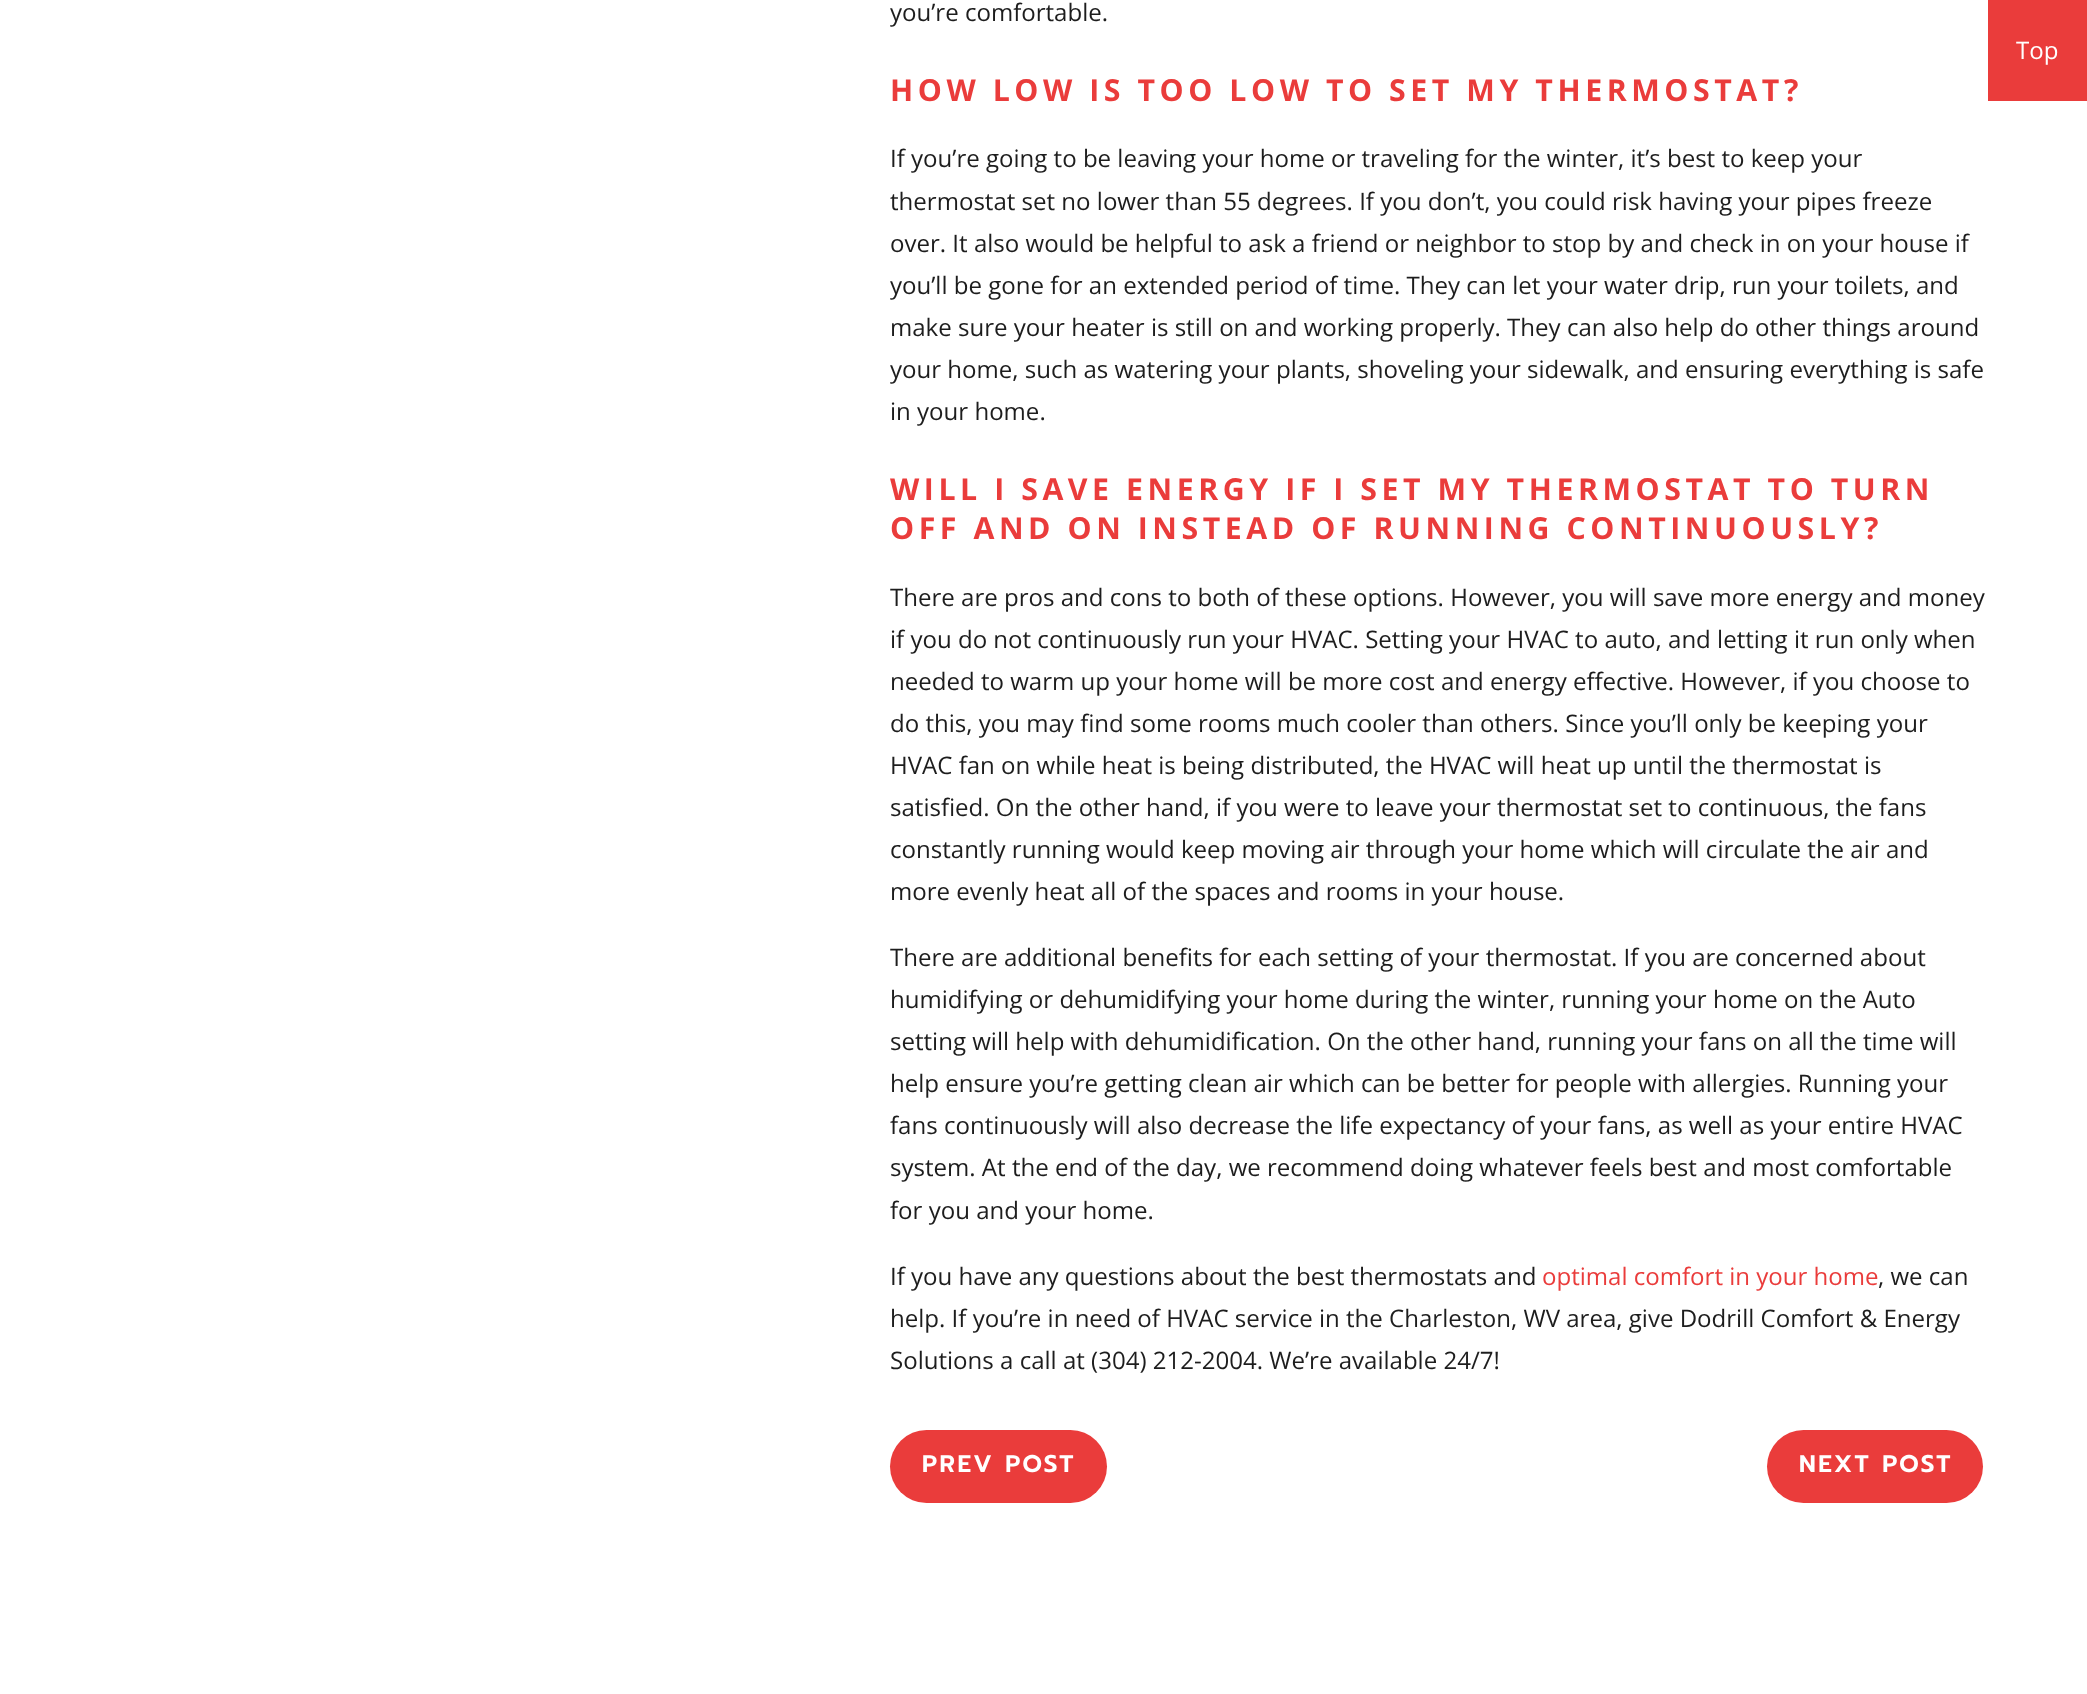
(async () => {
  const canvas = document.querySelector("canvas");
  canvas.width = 2087;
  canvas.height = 1694;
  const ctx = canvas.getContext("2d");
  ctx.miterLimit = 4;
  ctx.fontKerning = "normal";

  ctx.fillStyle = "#ffffff";
  ctx.fillRect(0, 0, 2087, 1694);
  ctx.fillStyle = "#ea3c3b";
  ctx.beginPath();
  ctx.roundRect(890, 1430, 217, 73, 36.5);
  ctx.fill();
  ctx.beginPath();
  ctx.roundRect(1767, 1430, 216, 73, 36.5);
  ctx.fill();
  ctx.fillRect(1988, 0, 99, 101);
  ctx.font = "24.05px Open Sans";
  ctx.fillStyle = "#1d1d1d";
  ctx.fillText("you’re comfortable.", 890, 21);
  ctx.letterSpacing = "4.55px";
  ctx.font = "bold 30.3px Open Sans";
  ctx.fillStyle = "#ea3c3b";
  ctx.fillText("HOW LOW IS TOO LOW TO SET MY THERMOSTAT?", 890, 101);
  ctx.letterSpacing = "0px";
  ctx.font = "24.05px Open Sans";
  ctx.fillStyle = "#1d1d1d";
  for (const [text, x, y] of [
    ["If you’re going to be leaving your home or traveling for the winter, it’s best to keep your", 890, 167],
    ["thermostat set no lower than 55 degrees. If you don’t, you could risk having your pipes freeze", 890, 210],
    ["over. It also would be helpful to ask a friend or neighbor to stop by and check in on your house if", 890, 252],
    ["you’ll be gone for an extended period of time. They can let your water drip, run your toilets, and", 890, 294],
    ["make sure your heater is still on and working properly. They can also help do other things around", 890, 336],
    ["your home, such as watering your plants, shoveling your sidewalk, and ensuring everything is safe", 890, 378],
    ["in your home.", 890, 420],
  ]) {
    ctx.fillText(text, x, y);
  }
  ctx.letterSpacing = "4.55px";
  ctx.font = "bold 30.3px Open Sans";
  ctx.fillStyle = "#ea3c3b";
  ctx.fillText("WILL I SAVE ENERGY IF I SET MY THERMOSTAT TO TURN", 890, 500);
  ctx.fillText("OFF AND ON INSTEAD OF RUNNING CONTINUOUSLY?", 890, 539);
  ctx.letterSpacing = "0px";
  ctx.font = "24.05px Open Sans";
  ctx.fillStyle = "#1d1d1d";
  for (const [text, x, y] of [
    ["There are pros and cons to both of these options. However, you will save more energy and money", 890, 606],
    ["if you do not continuously run your HVAC. Setting your HVAC to auto, and letting it run only when", 890, 648],
    ["needed to warm up your home will be more cost and energy effective. However, if you choose to", 890, 690],
    ["do this, you may find some rooms much cooler than others. Since you’ll only be keeping your", 890, 732],
    ["HVAC fan on while heat is being distributed, the HVAC will heat up until the thermostat is", 890, 774],
    ["satisfied. On the other hand, if you were to leave your thermostat set to continuous, the fans", 890, 816],
    ["constantly running would keep moving air through your home which will circulate the air and", 890, 858],
    ["more evenly heat all of the spaces and rooms in your house.", 890, 900],
    ["There are additional benefits for each setting of your thermostat. If you are concerned about", 890, 966],
    ["humidifying or dehumidifying your home during the winter, running your home on the Auto", 890, 1008],
    ["setting will help with dehumidification. On the other hand, running your fans on all the time will", 890, 1050],
    ["help ensure you’re getting clean air which can be better for people with allergies. Running your", 890, 1092],
    ["fans continuously will also decrease the life expectancy of your fans, as well as your entire HVAC", 890, 1134],
    ["system. At the end of the day, we recommend doing whatever feels best and most comfortable", 890, 1176],
    ["for you and your home.", 890, 1219],
    ["If you have any questions about the best thermostats and", 890, 1285],
  ]) {
    ctx.fillText(text, x, y);
  }
  ctx.fillStyle = "#ea3c3b";
  ctx.fillText("optimal comfort in your home", 1542, 1285);
  ctx.fillStyle = "#1d1d1d";
  for (const [text, x, y] of [
    [", we can", 1878, 1285],
    ["help. If you’re in need of HVAC service in the Charleston, WV area, give Dodrill Comfort & Energy", 890, 1327],
    ["Solutions a call at (304) 212-2004. We’re available 24/7!", 890, 1369],
  ]) {
    ctx.fillText(text, x, y);
  }
  ctx.letterSpacing = "2.5px";
  ctx.font = "600 24.05px Prompt";
  ctx.fillStyle = "#ffffff";
  ctx.fillText("PREV POST", 922, 1472);
  ctx.fillText("NEXT POST", 1799, 1472);
  ctx.letterSpacing = "0px";
  ctx.font = "24.05px Open Sans";
  ctx.fillText("Top", 2016, 59);
})();
